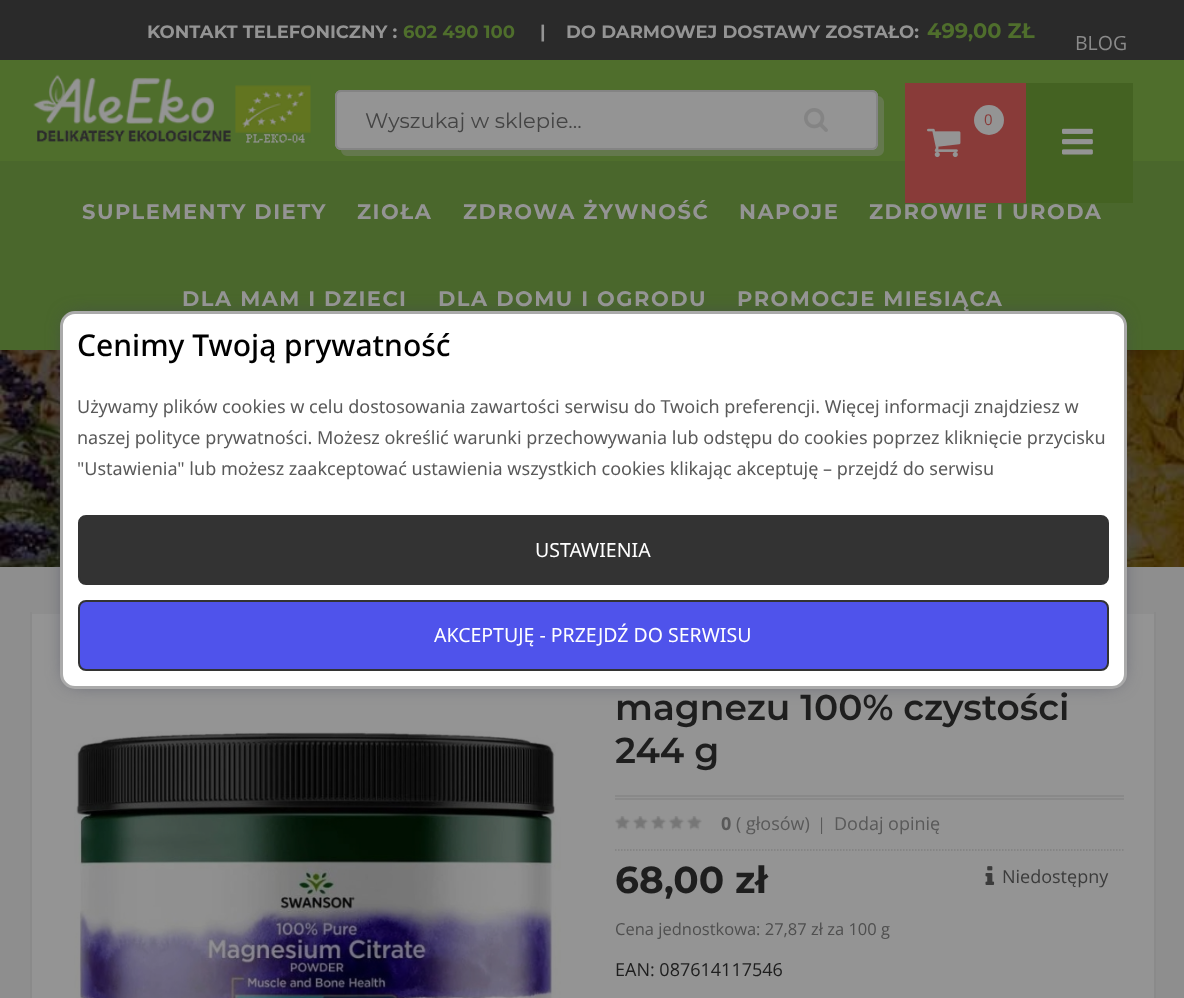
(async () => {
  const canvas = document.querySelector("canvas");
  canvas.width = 1184;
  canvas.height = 998;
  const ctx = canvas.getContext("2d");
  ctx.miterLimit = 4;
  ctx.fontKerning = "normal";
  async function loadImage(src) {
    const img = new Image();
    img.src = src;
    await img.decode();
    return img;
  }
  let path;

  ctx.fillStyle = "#8e8e8e";
  ctx.fillRect(0, 0, 1184, 998);
  ctx.fillStyle = "#2a2a2a";
  ctx.fillRect(0, 0, 1184, 60);
  ctx.fillStyle = "#4f6e2c";
  ctx.fillRect(0, 60, 1184, 101);
  ctx.drawImage(await loadImage("img/1.png"), 33, 74, 278, 69);
  ctx.fillStyle = "#949494";
  ctx.beginPath();
  ctx.roundRect(335, 90, 543, 60, 6);
  ctx.fill();
  ctx.fillStyle = "rgba(140, 140, 140, 0.35)";
  path = new Path2D("M341 150C341 153 344 156 347 156H878C881 156 884 153 884 150V102C884 99 881 96 878 96V144C878 147 875 150 872 150Z");
  ctx.fill(path);
  ctx.beginPath();
  ctx.roundRect(336, 91, 541, 58, 5);
  ctx.strokeStyle = "#848484";
  ctx.lineWidth = 2;
  ctx.stroke();
  ctx.drawImage(await loadImage("img/2.png"), 804, 108, 24, 24);
  ctx.fillStyle = "#4a672c";
  ctx.fillRect(0, 161, 1184, 189);
  ctx.fillStyle = "#893b39";
  ctx.fillRect(905, 83, 121, 120);
  ctx.fillStyle = "#949494";
  ctx.beginPath();
  ctx.arc(989, 120, 15, 0, Math.PI * 2);
  ctx.fill();
  ctx.drawImage(await loadImage("img/3.png"), 927, 128, 34, 30);
  ctx.fillStyle = "#446222";
  ctx.fillRect(1026, 83, 107, 120);
  ctx.drawImage(await loadImage("img/4.png"), 1062, 128, 31, 27);
  ctx.drawImage(await loadImage("img/5.png"), 0, 350, 1184, 217);
  for (const [x, y, w, h, color] of [
    [32, 614, 1122, 384, "#949494"],
    [1154, 612, 2, 386, "#8a8a8a"],
    [30, 612, 2, 386, "#8a8a8a"],
  ]) {
    ctx.fillStyle = color;
    ctx.fillRect(x, y, w, h);
  }
  ctx.drawImage(await loadImage("img/6.png"), 74, 731, 487, 267);
  ctx.fillStyle = "#898989";
  ctx.fillRect(615, 795, 509, 2);
  ctx.fillRect(615, 798, 509, 2);
  path = new Path2D("M615 850H1123.5");
  ctx.strokeStyle = "#808080";
  ctx.lineWidth = 1.5;
  ctx.setLineDash([1.5, 1.5]);
  ctx.stroke(path);
  ctx.drawImage(await loadImage("img/7.png"), 615, 816, 87, 14);
  ctx.drawImage(await loadImage("img/8.png"), 985, 866, 10, 19);
  ctx.fillStyle = "#42445a";
  ctx.filter = "blur(10px)";
  ctx.beginPath();
  ctx.roundRect(68, 318, 1051, 363, 8);
  ctx.fill();
  ctx.filter = "none";
  ctx.fillStyle = "#ffffff";
  ctx.beginPath();
  ctx.roundRect(61.5, 312.5, 1064, 375, 13.5);
  ctx.fill();
  ctx.strokeStyle = "#aaaaaa";
  ctx.lineWidth = 3;
  ctx.setLineDash([]);
  ctx.stroke();
  ctx.fillStyle = "#333333";
  ctx.beginPath();
  ctx.roundRect(79, 516, 1029, 68, 7);
  ctx.fill();
  ctx.strokeStyle = "#333333";
  ctx.lineWidth = 2;
  ctx.stroke();
  ctx.fillStyle = "#4f53eb";
  ctx.beginPath();
  ctx.roundRect(79, 601, 1029, 69, 7);
  ctx.fill();
  ctx.stroke();
  ctx.font = "bold 18px Montserrat";
  ctx.fillStyle = "#949494";
  ctx.fillText("KONTAKT TELEFONICZNY :", 147, 38);
  ctx.fillStyle = "#4f6e2c";
  ctx.fillText("602 490 100", 403, 38);
  ctx.fillStyle = "#949494";
  ctx.fillText("|", 540, 38);
  ctx.fillText("DO DARMOWEJ DOSTAWY ZOSTAŁO:", 566, 38);
  ctx.font = "bold 21px Montserrat";
  ctx.fillStyle = "#4f6e2c";
  ctx.fillText("499,00 ZŁ", 927, 38);
  ctx.font = "19.5px Open Sans";
  ctx.fillStyle = "#8a8a8a";
  ctx.fillText("BLOG", 1075, 50);
  ctx.font = "21px Montserrat";
  ctx.fillStyle = "#444444";
  ctx.fillText("Wyszukaj w sklepie...", 365, 128);
  ctx.letterSpacing = "1px";
  ctx.font = "15px Open Sans";
  ctx.fillStyle = "#893b39";
  ctx.fillText("0", 984, 125);
  ctx.letterSpacing = "1.5px";
  ctx.font = "bold 21px Montserrat";
  ctx.fillStyle = "#949494";
  for (const [text, x, y] of [
    ["SUPLEMENTY DIETY", 82, 219],
    ["ZIOŁA", 357, 219],
    ["ZDROWA ŻYWNOŚĆ", 463, 219],
    ["NAPOJE", 739, 219],
    ["ZDROWIE I URODA", 869, 219],
    ["DLA MAM I DZIECI", 182, 306],
    ["DLA DOMU I OGRODU", 438, 306],
    ["PROMOCJE MIESIĄCA", 737, 306],
  ]) {
    ctx.fillText(text, x, y);
  }
  ctx.letterSpacing = "0px";
  ctx.font = "600 36px Montserrat";
  ctx.fillStyle = "#1e1e1e";
  ctx.fillText("magnezu 100% czystości", 615, 720);
  ctx.fillText("244 g", 615, 763);
  ctx.font = "bold 18px Open Sans";
  ctx.fillStyle = "#595959";
  ctx.fillText("0", 721, 830);
  ctx.font = "18px Open Sans";
  ctx.fillText("( głosów)", 736, 830);
  ctx.font = "16.5px Open Sans";
  ctx.fillText("|", 817, 830);
  ctx.font = "18px Open Sans";
  ctx.fillText("Dodaj opinię", 834, 830);
  ctx.font = "bold 37.5px Montserrat";
  ctx.fillStyle = "#1e1e1e";
  ctx.fillText("68,00 zł", 615, 893);
  ctx.font = "16.5px Open Sans";
  ctx.fillStyle = "#4f4f4f";
  ctx.fillText("Cena jednostkowa: 27,87 zł za 100 g", 615, 935);
  ctx.font = "18px Open Sans";
  ctx.fillStyle = "#1e1e1e";
  ctx.fillText("EAN: 087614117546", 615, 976);
  ctx.fillStyle = "#3b3b3b";
  ctx.fillText("Niedostępny", 1002, 883);
  ctx.font = "500 30px Noto Sans";
  ctx.fillStyle = "#000000";
  ctx.fillText("Cenimy Twoją prywatność", 77, 356);
  ctx.font = "18px Noto Sans";
  ctx.fillStyle = "#595959";
  for (const [text, x, y] of [
    ["Używamy plików cookies w celu dostosowania zawartości serwisu do Twoich preferencji. Więcej informacji znajdziesz w", 77, 413],
    ["naszej polityce prywatności. Możesz określić warunki przechowywania lub odstępu do cookies poprzez kliknięcie przycisku", 77, 444],
    ["\"Ustawienia\" lub możesz zaakceptować ustawienia wszystkich cookies klikając akceptuję – przejdź do serwisu", 77, 475],
  ]) {
    ctx.fillText(text, x, y);
  }
  ctx.font = "19.5px Noto Sans";
  ctx.fillStyle = "#ffffff";
  ctx.fillText("USTAWIENIA", 535, 557);
  ctx.fillText("AKCEPTUJĘ - PRZEJDŹ DO SERWISU", 434, 642);
})();
